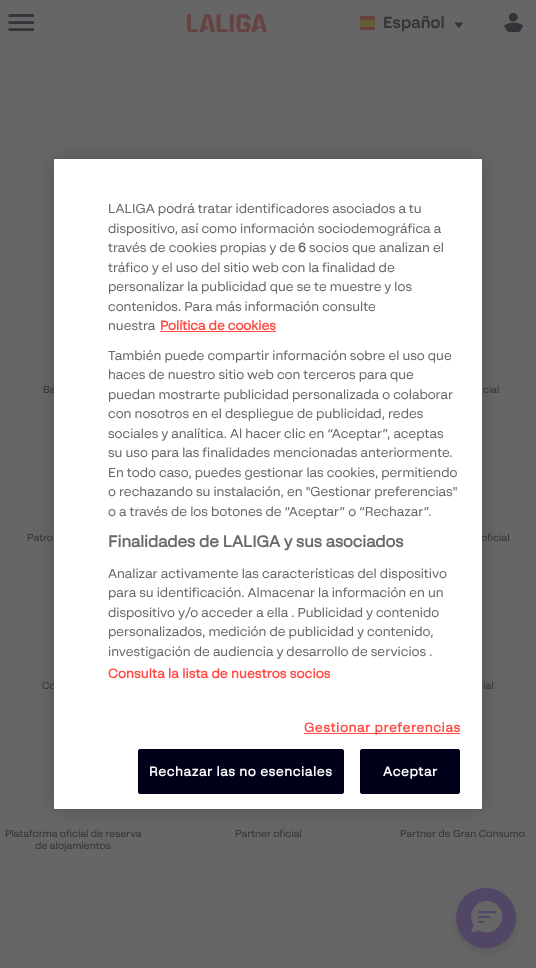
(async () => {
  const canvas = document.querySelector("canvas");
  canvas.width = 536;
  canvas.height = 968;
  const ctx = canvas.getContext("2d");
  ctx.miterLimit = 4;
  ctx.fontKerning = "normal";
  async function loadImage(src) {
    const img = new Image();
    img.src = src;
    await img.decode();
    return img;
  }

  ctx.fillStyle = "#666666";
  ctx.fillRect(0, 0, 536, 968);
  ctx.drawImage(await loadImage("img/1.png"), 8, 14, 26, 18);
  ctx.drawImage(await loadImage("img/2.png"), 187, 14, 80, 18);
  ctx.fillStyle = "#664241";
  ctx.beginPath();
  ctx.roundRect(360, 16, 15, 14, [1, 1, 0, 0]);
  ctx.fill();
  ctx.fillStyle = "#665d33";
  ctx.fillRect(360, 20, 15, 7);
  ctx.drawImage(await loadImage("img/3.png"), 454, 22, 9, 6);
  ctx.drawImage(await loadImage("img/4.png"), 504, 13, 20, 20);
  for (const [x, y, w, h, color] of [
    [0, 44, 536, 1, "#626262"],
    [0, 287, 536, 1, "#626262"],
    [0, 428, 495, 1, "#626262"],
    [0, 576, 495, 1, "#626262"],
    [0, 724, 486, 1, "#626262"],
    [0, 884, 495, 1, "#626262"],
  ]) {
    ctx.fillStyle = color;
    ctx.fillRect(x, y, w, h);
  }
  ctx.fillStyle = "rgba(0, 0, 0, 0.2)";
  ctx.filter = "blur(9px)";
  ctx.beginPath();
  ctx.roundRect(54, 159, 428, 650, 1);
  ctx.fill();
  ctx.filter = "none";
  ctx.fillStyle = "rgba(51, 51, 51, 0.2)";
  ctx.filter = "blur(4px)";
  ctx.beginPath();
  ctx.roundRect(456, 892, 60, 60, 30);
  ctx.fill();
  ctx.filter = "none";
  ctx.fillStyle = "#524666";
  ctx.beginPath();
  ctx.arc(486, 918, 30, 0, Math.PI * 2);
  ctx.fill();
  ctx.drawImage(await loadImage("img/5.png"), 471, 901, 32, 32);
  ctx.font = "bold 16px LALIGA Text";
  ctx.fillStyle = "#333339";
  ctx.fillText("Español", 383, 28);
  ctx.font = "10px LALIGA Text";
  for (const [text, x, y] of [
    ["Ba", 43, 393],
    ["cial", 483, 393],
    ["Patro", 27, 541],
    ["oficial", 481, 541],
    ["Co", 42, 689],
    ["ial", 483, 689],
    ["Plataforma oficial de reserva", 5, 837],
    ["de alojamientos", 35, 849],
    ["Partner oficial", 235, 837],
    ["Partner de Gran Consumo", 400, 837],
  ]) {
    ctx.fillText(text, x, y);
  }
  ctx.fillStyle = "#ffffff";
  ctx.beginPath();
  ctx.roundRect(54, 159, 428, 650, 1);
  ctx.fill();
  ctx.font = "13px LALIGA Text";
  ctx.fillStyle = "#696969";
  for (const [text, x, y] of [
    ["LALIGA podrá tratar identificadores asociados a tu", 108, 213],
    ["dispositivo, así como información sociodemográfica a", 108, 233],
    ["través de cookies propias y de", 108, 252],
  ]) {
    ctx.fillText(text, x, y);
  }
  ctx.font = "bold 13px 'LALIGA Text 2'";
  ctx.fillText("6", 298, 252);
  ctx.font = "13px LALIGA Text";
  for (const [text, x, y] of [
    ["socios que analizan el", 309, 252],
    ["tráfico y el uso del sitio web con la finalidad de", 108, 272],
    ["personalizar la publicidad que se te muestre y los", 108, 291],
    ["contenidos. Para más información consulte", 108, 311],
    ["nuestra", 108, 330],
  ]) {
    ctx.fillText(text, x, y);
  }
  ctx.font = "bold 13px 'LALIGA Text 2'";
  ctx.fillStyle = "#ff4b44";
  ctx.fillText("Política de cookies", 160, 330);
  ctx.fillRect(160, 331, 116, 1);
  ctx.font = "13px LALIGA Text";
  ctx.fillStyle = "#696969";
  for (const [text, x, y] of [
    ["También puede compartir información sobre el uso que", 108, 360],
    ["haces de nuestro sitio web con terceros para que", 108, 379],
    ["puedan mostrarte publicidad personalizada o colaborar", 108, 399],
    ["con nosotros en el despliegue de publicidad, redes", 108, 418],
    ["sociales y analítica. Al hacer clic en “Aceptar”, aceptas", 108, 438],
    ["su uso para las finalidades mencionadas anteriormente.", 108, 457],
    ["En todo caso, puedes gestionar las cookies, permitiendo", 108, 477],
    ["o rechazando su instalación, en \"Gestionar preferencias\"", 108, 496],
    ["o a través de los botones de “Aceptar” o “Rechazar”.", 108, 516],
  ]) {
    ctx.fillText(text, x, y);
  }
  ctx.font = "bold 16px 'LALIGA Text 2'";
  ctx.fillText("Finalidades de LALIGA y sus asociados", 108, 547);
  ctx.font = "13px LALIGA Text";
  for (const [text, x, y] of [
    ["Analizar activamente las características del dispositivo", 108, 578],
    ["para su identificación. Almacenar la información en un", 108, 597],
    ["dispositivo y/o acceder a ella . Publicidad y contenido", 108, 617],
    ["personalizados, medición de publicidad y contenido,", 108, 636],
    ["investigación de audiencia y desarrollo de servicios .", 108, 656],
  ]) {
    ctx.fillText(text, x, y);
  }
  ctx.letterSpacing = "0.15px";
  ctx.font = "bold 13px 'LALIGA Text 2'";
  ctx.fillStyle = "#ff4b44";
  ctx.fillText("Consulta la lista de nuestros socios", 108, 678);
  ctx.fillRect(304, 733, 156, 1);
  ctx.letterSpacing = "0.65px";
  ctx.fillText("Gestionar preferencias", 304, 732);
  ctx.fillStyle = "#00001b";
  ctx.beginPath();
  ctx.roundRect(138.5, 749.5, 205, 44, 1.5);
  ctx.fill();
  ctx.strokeStyle = "#00001b";
  ctx.stroke();
  ctx.fillStyle = "#ffffff";
  ctx.fillText("Rechazar las no esenciales", 149, 776);
  ctx.fillStyle = "#00001b";
  ctx.beginPath();
  ctx.roundRect(360.5, 749.5, 99, 44, 1.5);
  ctx.fill();
  ctx.stroke();
  ctx.fillStyle = "#ffffff";
  ctx.fillText("Aceptar", 383, 776);
})();
